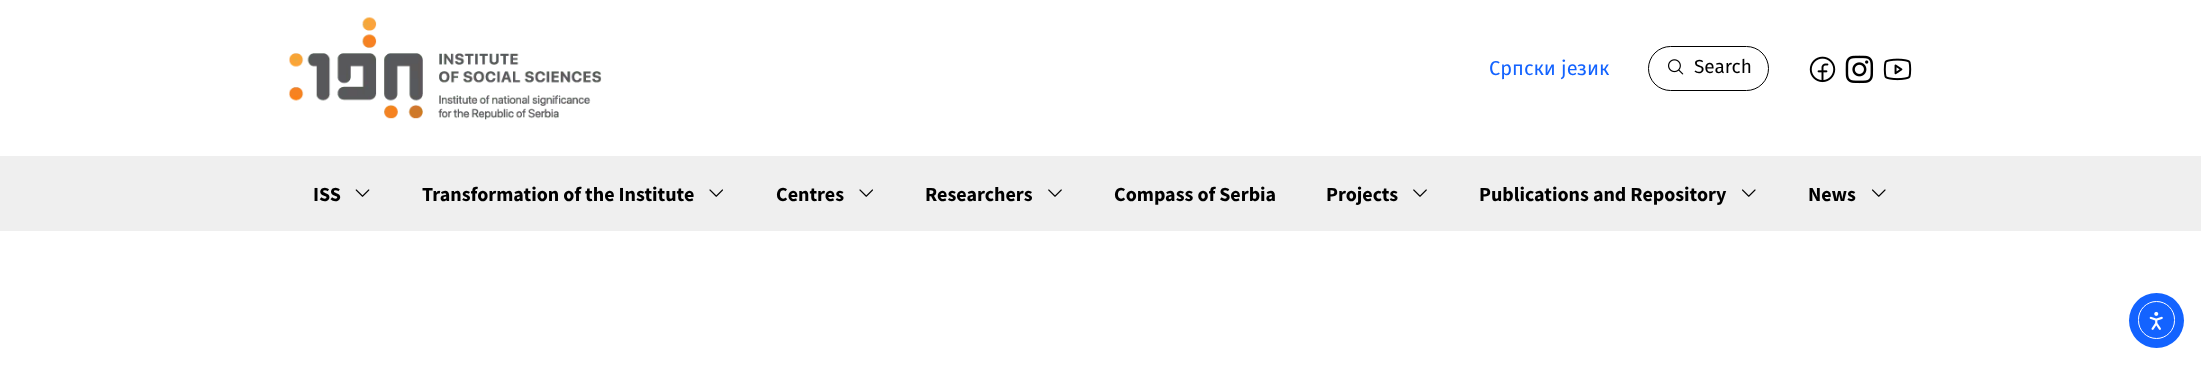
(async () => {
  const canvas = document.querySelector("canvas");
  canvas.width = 2201;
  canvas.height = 365;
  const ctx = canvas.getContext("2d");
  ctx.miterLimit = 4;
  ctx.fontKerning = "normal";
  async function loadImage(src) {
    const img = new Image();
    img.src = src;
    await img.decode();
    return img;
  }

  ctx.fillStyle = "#ffffff";
  ctx.fillRect(0, 0, 2201, 365);
  ctx.drawImage(await loadImage("img/1.png"), 289, 17, 313, 103);
  ctx.beginPath();
  ctx.roundRect(1648.5, 46.5, 120, 44, 22);
  ctx.strokeStyle = "#000000";
  ctx.stroke();
  ctx.drawImage(await loadImage("img/2.png"), 1668, 59, 16, 16);
  ctx.drawImage(await loadImage("img/3.png"), 1809, 56, 27, 27);
  ctx.drawImage(await loadImage("img/4.png"), 1845, 55, 29, 29);
  ctx.drawImage(await loadImage("img/5.png"), 1883, 58, 29, 23);
  ctx.fillStyle = "#efefef";
  ctx.fillRect(0, 156, 2201, 75);
  ctx.drawImage(await loadImage("img/6.png"), 355, 189, 15, 8);
  ctx.drawImage(await loadImage("img/7.png"), 709, 189, 14, 8);
  ctx.drawImage(await loadImage("img/7.png"), 859, 189, 14, 8);
  ctx.drawImage(await loadImage("img/8.png"), 1048, 189, 14, 8);
  ctx.drawImage(await loadImage("img/8.png"), 1413, 189, 14, 8);
  ctx.drawImage(await loadImage("img/9.png"), 1742, 189, 14, 8);
  ctx.drawImage(await loadImage("img/9.png"), 1872, 189, 14, 8);
  ctx.fillStyle = "#1363ff";
  ctx.beginPath();
  ctx.arc(2156.5, 320.5, 27.5, 0, Math.PI * 2);
  ctx.fill();
  ctx.beginPath();
  ctx.roundRect(2138.5, 301.5, 36, 37, 18);
  ctx.strokeStyle = "#ffffff";
  ctx.stroke();
  ctx.drawImage(await loadImage("img/10.png"), 2149, 311, 14, 19);
  ctx.font = "20px Fira Sans";
  ctx.fillText("Српски језик", 1489, 75);
  ctx.font = "19px Fira Sans";
  ctx.fillStyle = "#000000";
  ctx.fillText("Search", 1694, 73);
  ctx.font = "bold 20px Source Sans Pro";
  for (const [text, x, y] of [
    ["ISS", 313, 201],
    ["Transformation of the Institute", 422, 201],
    ["Centres", 776, 201],
    ["Researchers", 925, 201],
    ["Compass of Serbia", 1114, 201],
    ["Projects", 1326, 201],
    ["Publications and Repository", 1479, 201],
    ["News", 1808, 201],
  ]) {
    ctx.fillText(text, x, y);
  }
})();
